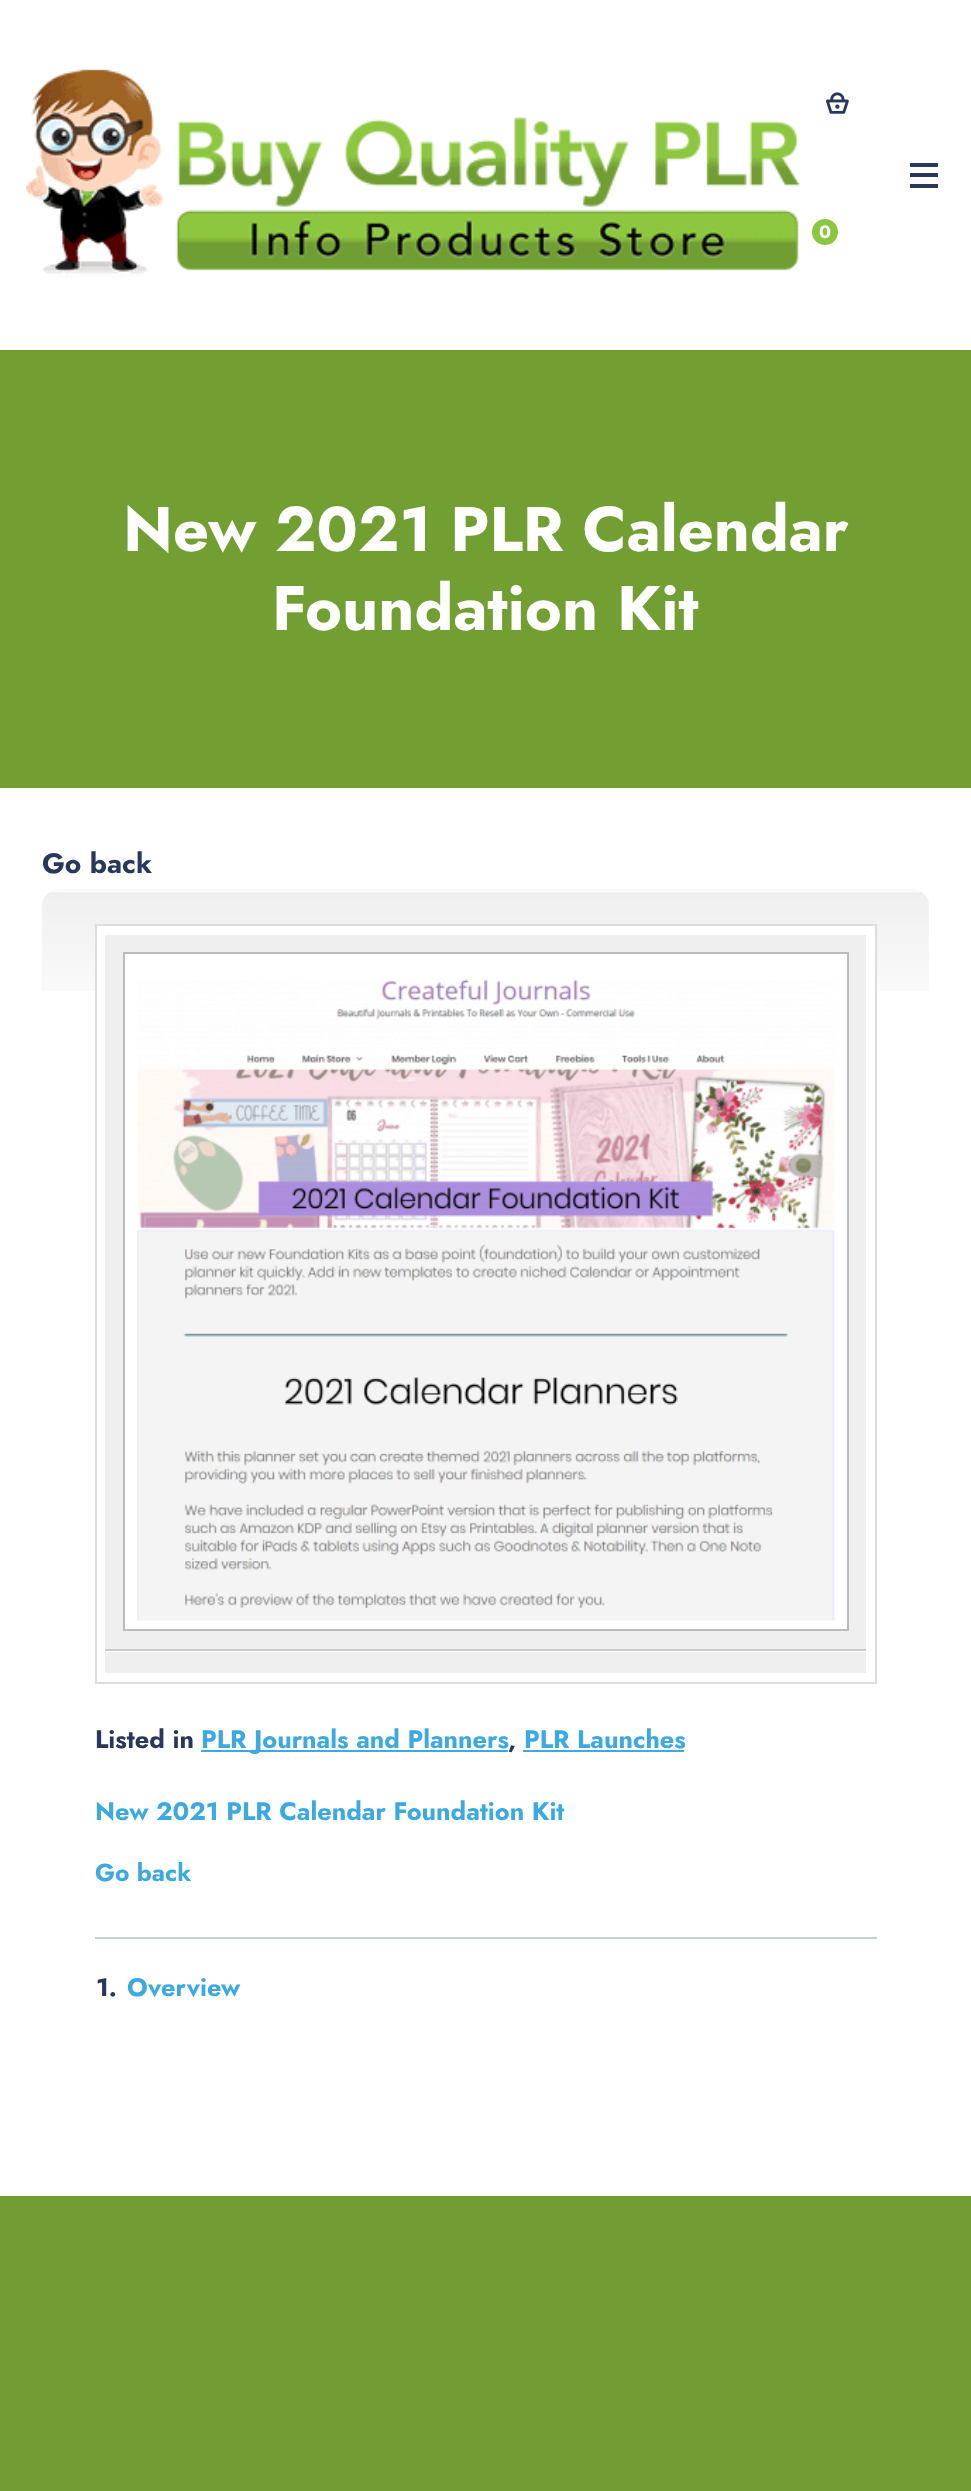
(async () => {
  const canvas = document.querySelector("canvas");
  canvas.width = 971;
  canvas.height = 2491;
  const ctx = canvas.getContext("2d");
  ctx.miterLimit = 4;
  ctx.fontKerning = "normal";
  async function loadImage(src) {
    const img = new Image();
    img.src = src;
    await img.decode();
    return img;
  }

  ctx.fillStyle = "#ffffff";
  ctx.fillRect(0, 0, 971, 2491);
  ctx.drawImage(await loadImage("img/1.png"), 26, 69, 774, 209);
  for (const [x, y, w, h, color] of [
    [910, 173, 28, 4, "#28375a"],
    [910, 163, 28, 4, "#28375a"],
    [910, 184, 28, 4, "#28375a"],
  ]) {
    ctx.fillStyle = color;
    ctx.fillRect(x, y, w, h);
  }
  ctx.drawImage(await loadImage("img/2.png"), 826, 92, 23, 22);
  ctx.fillStyle = "#8dc63f";
  ctx.beginPath();
  ctx.arc(825, 232, 13, 0, Math.PI * 2);
  ctx.fill();
  ctx.fillStyle = "#719f32";
  ctx.fillRect(0, 350, 971, 438);
  ctx.drawImage(await loadImage("img/3.png"), 42, 889, 887, 102);
  ctx.fillStyle = "#ffffff";
  ctx.fillRect(97, 926, 778, 65);
  ctx.strokeStyle = "#dddddd";
  ctx.lineWidth = 2;
  ctx.strokeRect(96, 925, 780, 758);
  ctx.fillStyle = "#efefef";
  ctx.fillRect(105, 935, 761, 714);
  ctx.fillStyle = "#cbcbcb";
  ctx.fillRect(105, 1649, 761, 2);
  ctx.fillStyle = "#ffffff";
  ctx.beginPath();
  ctx.rect(124, 953, 724, 677);
  ctx.fill();
  ctx.strokeStyle = "#bdbcbd";
  ctx.stroke();
  ctx.drawImage(await loadImage("img/4.png"), 137, 979, 698, 642);
  for (const [x, y, w, h, color] of [
    [105, 1652, 761, 21, "#efefef"],
    [201, 1750, 307, 2, "#3caae0"],
    [523, 1750, 161, 2, "#3caae0"],
    [95, 1937, 782, 2, "#c9cdd6"],
    [0, 2196, 971, 295, "#719e32"],
  ]) {
    ctx.fillStyle = color;
    ctx.fillRect(x, y, w, h);
  }
  ctx.font = "bold 18px Jost";
  ctx.fillStyle = "#ffffff";
  ctx.fillText("0", 819, 238);
  ctx.font = "bold 63px Jost";
  ctx.fillText("New 2021 PLR Calendar", 123, 551);
  ctx.fillText("Foundation Kit", 272, 630);
  ctx.font = "bold 28px Jost";
  ctx.fillStyle = "#28375a";
  ctx.fillText("Go back", 42, 873);
  ctx.font = "bold 25.25px Jost";
  ctx.fillText("Listed in", 95, 1748);
  ctx.fillStyle = "#3caae0";
  ctx.fillText("PLR Journals and Planners", 201, 1748);
  ctx.fillStyle = "#28375a";
  ctx.fillText(",", 508, 1748);
  ctx.fillStyle = "#3caae0";
  ctx.fillText("PLR Launches", 524, 1748);
  ctx.fillText("New 2021 PLR Calendar Foundation Kit", 95, 1820);
  ctx.font = "bold 24.5px Jost";
  ctx.fillText("Go back", 95, 1881);
  ctx.font = "bold 25.25px Jost";
  ctx.fillStyle = "#28375a";
  ctx.fillText("1.", 96, 1996);
  ctx.fillStyle = "#3caae0";
  ctx.fillText("Overview", 127, 1996);
})();
